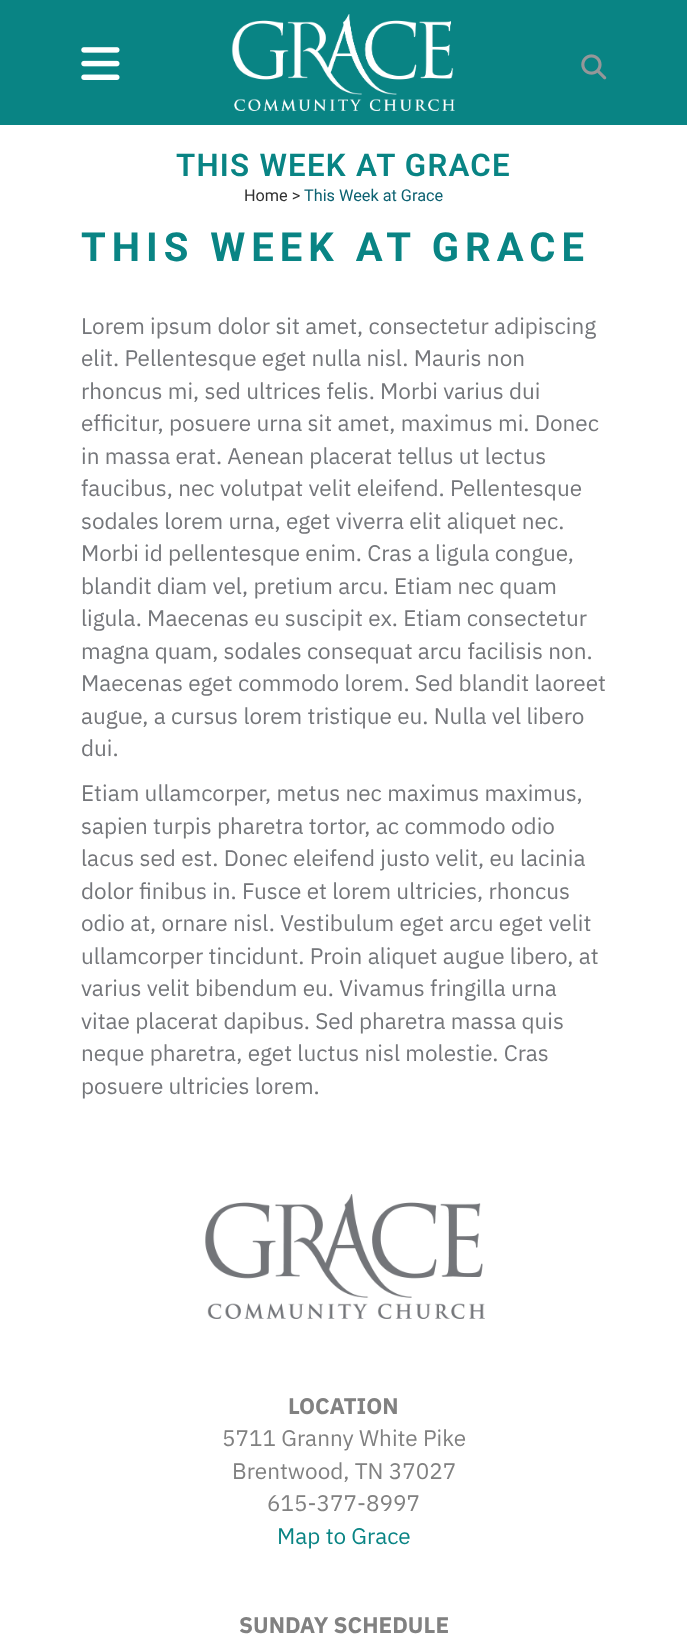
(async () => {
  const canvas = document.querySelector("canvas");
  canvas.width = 687;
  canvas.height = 1642;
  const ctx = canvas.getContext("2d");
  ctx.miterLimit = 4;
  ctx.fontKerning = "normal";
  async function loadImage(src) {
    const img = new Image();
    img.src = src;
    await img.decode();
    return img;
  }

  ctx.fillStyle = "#ffffff";
  ctx.fillRect(0, 0, 687, 1642);
  ctx.fillStyle = "#098484";
  ctx.fillRect(0, 0, 687, 125);
  ctx.drawImage(await loadImage("img/1.png"), 81, 47, 39, 33);
  ctx.drawImage(await loadImage("img/2.png"), 231, 14, 224, 97);
  ctx.drawImage(await loadImage("img/3.png"), 581, 54, 26, 26);
  ctx.drawImage(await loadImage("img/4.png"), 205, 1194, 280, 125);
  ctx.letterSpacing = "1.25px";
  ctx.font = "600 31.25px Roboto";
  ctx.fillText("THIS WEEK AT GRACE", 176, 176);
  ctx.letterSpacing = "0px";
  ctx.font = "16.25px Roboto";
  ctx.fillStyle = "#303030";
  ctx.fillText("Home >", 244, 201);
  ctx.fillStyle = "#0c6171";
  ctx.fillText("This Week at Grace", 304, 201);
  ctx.letterSpacing = "6px";
  ctx.font = "bold 40px Roboto";
  ctx.fillStyle = "#098484";
  ctx.fillText("THIS WEEK AT GRACE", 81, 261);
  ctx.letterSpacing = "0px";
  ctx.font = "22.5px IBM Plex Sans";
  ctx.fillStyle = "#74767a";
  for (const [text, x, y] of [
    ["Lorem ipsum dolor sit amet, consectetur adipiscing", 81, 334],
    ["elit. Pellentesque eget nulla nisl. Mauris non", 81, 366],
    ["rhoncus mi, sed ultrices felis. Morbi varius dui", 81, 399],
    ["efficitur, posuere urna sit amet, maximus mi. Donec", 81, 431],
    ["in massa erat. Aenean placerat tellus ut lectus", 81, 464],
    ["faucibus, nec volutpat velit eleifend. Pellentesque", 81, 496],
    ["sodales lorem urna, eget viverra elit aliquet nec.", 81, 529],
    ["Morbi id pellentesque enim. Cras a ligula congue,", 81, 561],
    ["blandit diam vel, pretium arcu. Etiam nec quam", 81, 594],
    ["ligula. Maecenas eu suscipit ex. Etiam consectetur", 81, 626],
    ["magna quam, sodales consequat arcu facilisis non.", 81, 659],
    ["Maecenas eget commodo lorem. Sed blandit laoreet", 81, 691],
    ["augue, a cursus lorem tristique eu. Nulla vel libero", 81, 724],
    ["dui.", 81, 756],
    ["Etiam ullamcorper, metus nec maximus maximus,", 81, 801],
    ["sapien turpis pharetra tortor, ac commodo odio", 81, 834],
    ["lacus sed est. Donec eleifend justo velit, eu lacinia", 81, 866],
    ["dolor finibus in. Fusce et lorem ultricies, rhoncus", 81, 899],
    ["odio at, ornare nisl. Vestibulum eget arcu eget velit", 81, 931],
    ["ullamcorper tincidunt. Proin aliquet augue libero, at", 81, 964],
    ["varius velit bibendum eu. Vivamus fringilla urna", 81, 996],
    ["vitae placerat dapibus. Sed pharetra massa quis", 81, 1029],
    ["neque pharetra, eget luctus nisl molestie. Cras", 81, 1061],
    ["posuere ultricies lorem.", 81, 1094],
  ]) {
    ctx.fillText(text, x, y);
  }
  ctx.font = "bold 22.5px IBM Plex Sans";
  ctx.fillStyle = "#818181";
  ctx.fillText("LOCATION", 288, 1414);
  ctx.font = "22.5px IBM Plex Sans";
  for (const [text, x, y] of [
    ["5711 Granny White Pike", 222, 1446],
    ["Brentwood, TN 37027", 232, 1479],
    ["615-377-8997", 267, 1511],
  ]) {
    ctx.fillText(text, x, y);
  }
  ctx.fillStyle = "#098484";
  ctx.fillText("Map to Grace", 277, 1544);
  ctx.font = "bold 22.5px IBM Plex Sans";
  ctx.fillStyle = "#818181";
  ctx.fillText("SUNDAY SCHEDULE", 239, 1633);
})();
